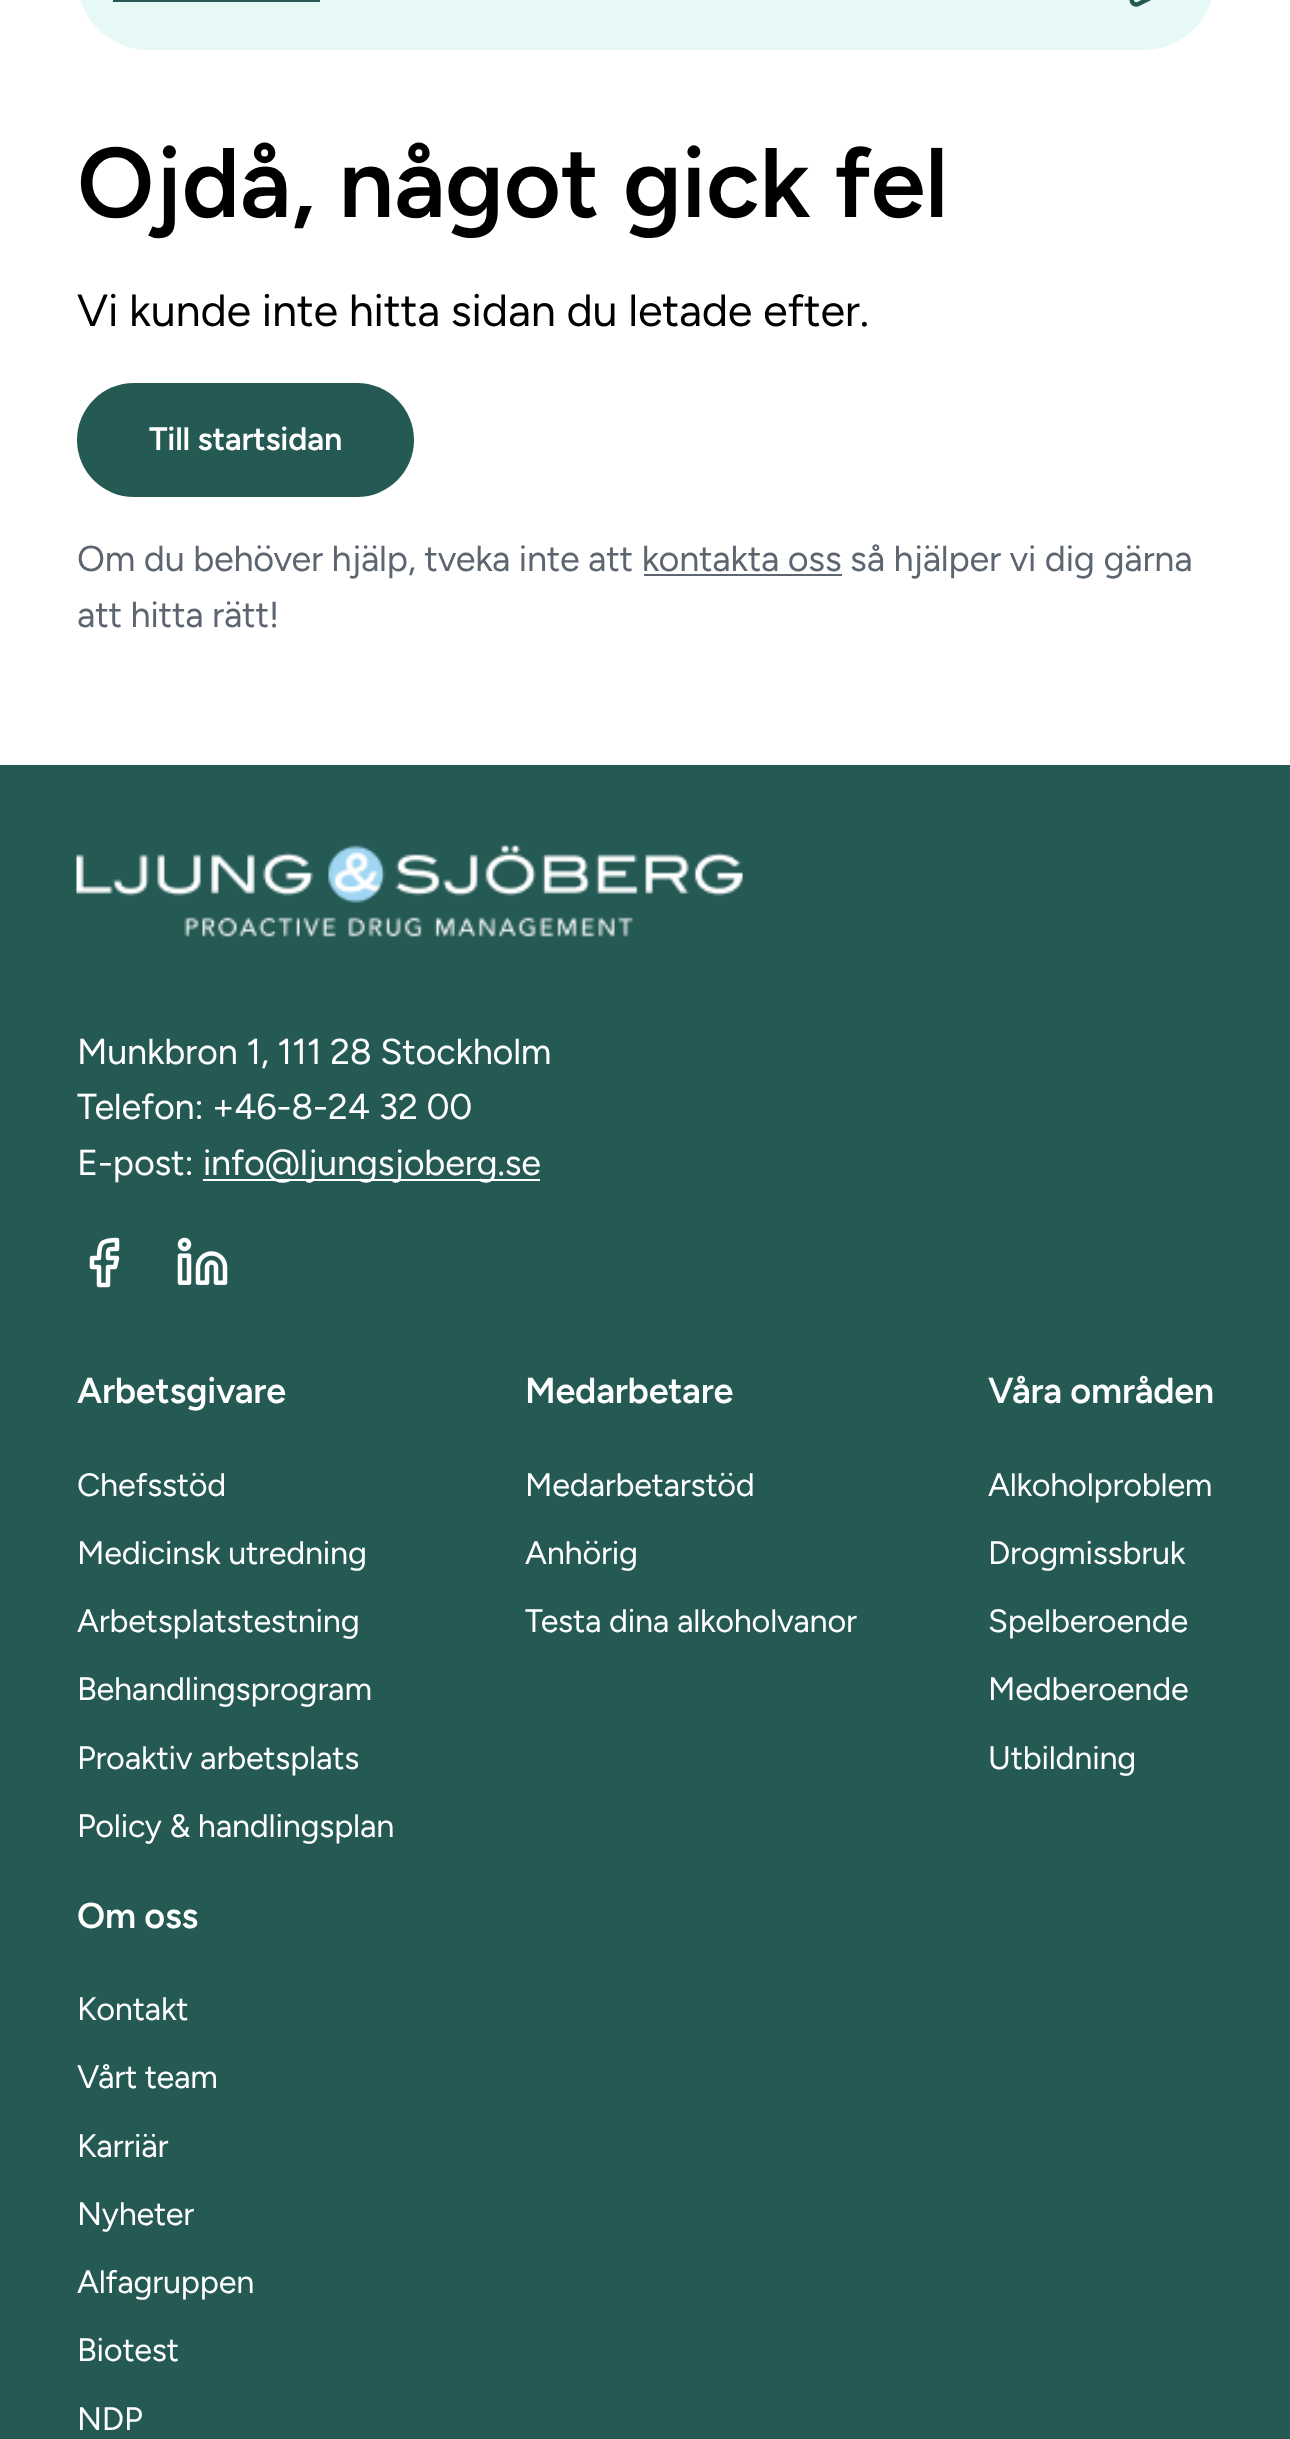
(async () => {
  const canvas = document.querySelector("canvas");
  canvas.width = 1290;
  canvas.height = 2439;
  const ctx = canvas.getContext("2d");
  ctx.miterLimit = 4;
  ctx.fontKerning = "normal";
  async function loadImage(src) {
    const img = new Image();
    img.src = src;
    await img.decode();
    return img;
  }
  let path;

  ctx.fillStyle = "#ffffff";
  ctx.fillRect(0, 0, 1290, 2439);
  ctx.fillStyle = "#e6f9f6";
  path = new Path2D("M77-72H1215V-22C1215 18 1183 50 1143 50H149C109 50 77 18 77-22Z");
  ctx.fill(path);
  ctx.fillStyle = "#245954";
  ctx.fillRect(113, 0, 207, 2);
  ctx.drawImage(await loadImage("img/1.png"), 1129, 0, 22, 7);
  ctx.beginPath();
  ctx.roundRect(77, 383, 337, 114, 57);
  ctx.fill();
  ctx.fillStyle = "#5c6570";
  ctx.fillRect(644, 574, 198, 2);
  ctx.fillStyle = "#245954";
  ctx.fillRect(0, 765, 1290, 1674);
  ctx.drawImage(await loadImage("img/2.png"), 76, 844, 667, 93);
  ctx.fillStyle = "#ffffff";
  ctx.fillRect(203, 1179, 337, 2);
  path = new Path2D("M117 1240C101.5 1240 99 1242.5 99 1258H92V1267H99V1285H108V1267H115L117 1258H108C108 1248 107 1249 117 1249Z");
  ctx.strokeStyle = "#ffffff";
  ctx.lineWidth = 4.5;
  ctx.lineCap = "round";
  ctx.lineJoin = "round";
  ctx.stroke(path);
  ctx.drawImage(await loadImage("img/3.png"), 177, 1237, 51, 48);
  ctx.letterSpacing = "-0.23px";
  ctx.font = "600 98.75px Figtree";
  ctx.fillStyle = "#000000";
  ctx.fillText("Ojdå, något gick fel", 77, 217);
  ctx.font = "45px Figtree";
  ctx.fillText("Vi kunde inte hitta sidan du letade efter.", 77, 326);
  ctx.font = "600 32.4px Figtree";
  ctx.fillStyle = "#ffffff";
  ctx.fillText("Till startsidan", 149, 450);
  ctx.font = "36px Figtree";
  ctx.fillStyle = "#5c6570";
  ctx.fillText("Om du behöver hjälp, tveka inte att kontakta oss så hjälper vi dig gärna", 77, 571);
  ctx.fillText("att hitta rätt!", 77, 627);
  ctx.fillStyle = "#ffffff";
  for (const [text, x, y] of [
    ["Munkbron 1, 111 28 Stockholm", 77, 1064],
    ["Telefon: +46-8-24 32 00", 77, 1119],
    ["E-post:", 77, 1175],
    ["info@ljungsjoberg.se", 203, 1175],
  ]) {
    ctx.fillText(text, x, y);
  }
  ctx.font = "600 36px Figtree";
  ctx.fillText("Arbetsgivare", 77, 1403);
  ctx.font = "32.4px Figtree";
  for (const [text, x, y] of [
    ["Chefsstöd", 77, 1496],
    ["Medicinsk utredning", 77, 1564],
    ["Arbetsplatstestning", 77, 1632],
    ["Behandlingsprogram", 77, 1700],
    ["Proaktiv arbetsplats", 77, 1769],
    ["Policy & handlingsplan", 77, 1837],
  ]) {
    ctx.fillText(text, x, y);
  }
  ctx.font = "600 36px Figtree";
  ctx.fillText("Medarbetare", 525, 1403);
  ctx.font = "32.4px Figtree";
  for (const [text, x, y] of [
    ["Medarbetarstöd", 525, 1496],
    ["Anhörig", 525, 1564],
    ["Testa dina alkoholvanor", 525, 1632],
  ]) {
    ctx.fillText(text, x, y);
  }
  ctx.font = "600 36px Figtree";
  ctx.fillText("Våra områden", 988, 1403);
  ctx.font = "32.4px Figtree";
  for (const [text, x, y] of [
    ["Alkoholproblem", 988, 1496],
    ["Drogmissbruk", 988, 1564],
    ["Spelberoende", 988, 1632],
    ["Medberoende", 988, 1700],
    ["Utbildning", 988, 1769],
  ]) {
    ctx.fillText(text, x, y);
  }
  ctx.font = "600 36px Figtree";
  ctx.fillText("Om oss", 77, 1928);
  ctx.font = "32.4px Figtree";
  for (const [text, x, y] of [
    ["Kontakt", 77, 2020],
    ["Vårt team", 77, 2088],
    ["Karriär", 77, 2157],
    ["Nyheter", 77, 2225],
    ["Alfagruppen", 77, 2293],
    ["Biotest", 77, 2361],
    ["NDP", 77, 2430],
  ]) {
    ctx.fillText(text, x, y);
  }
})();
